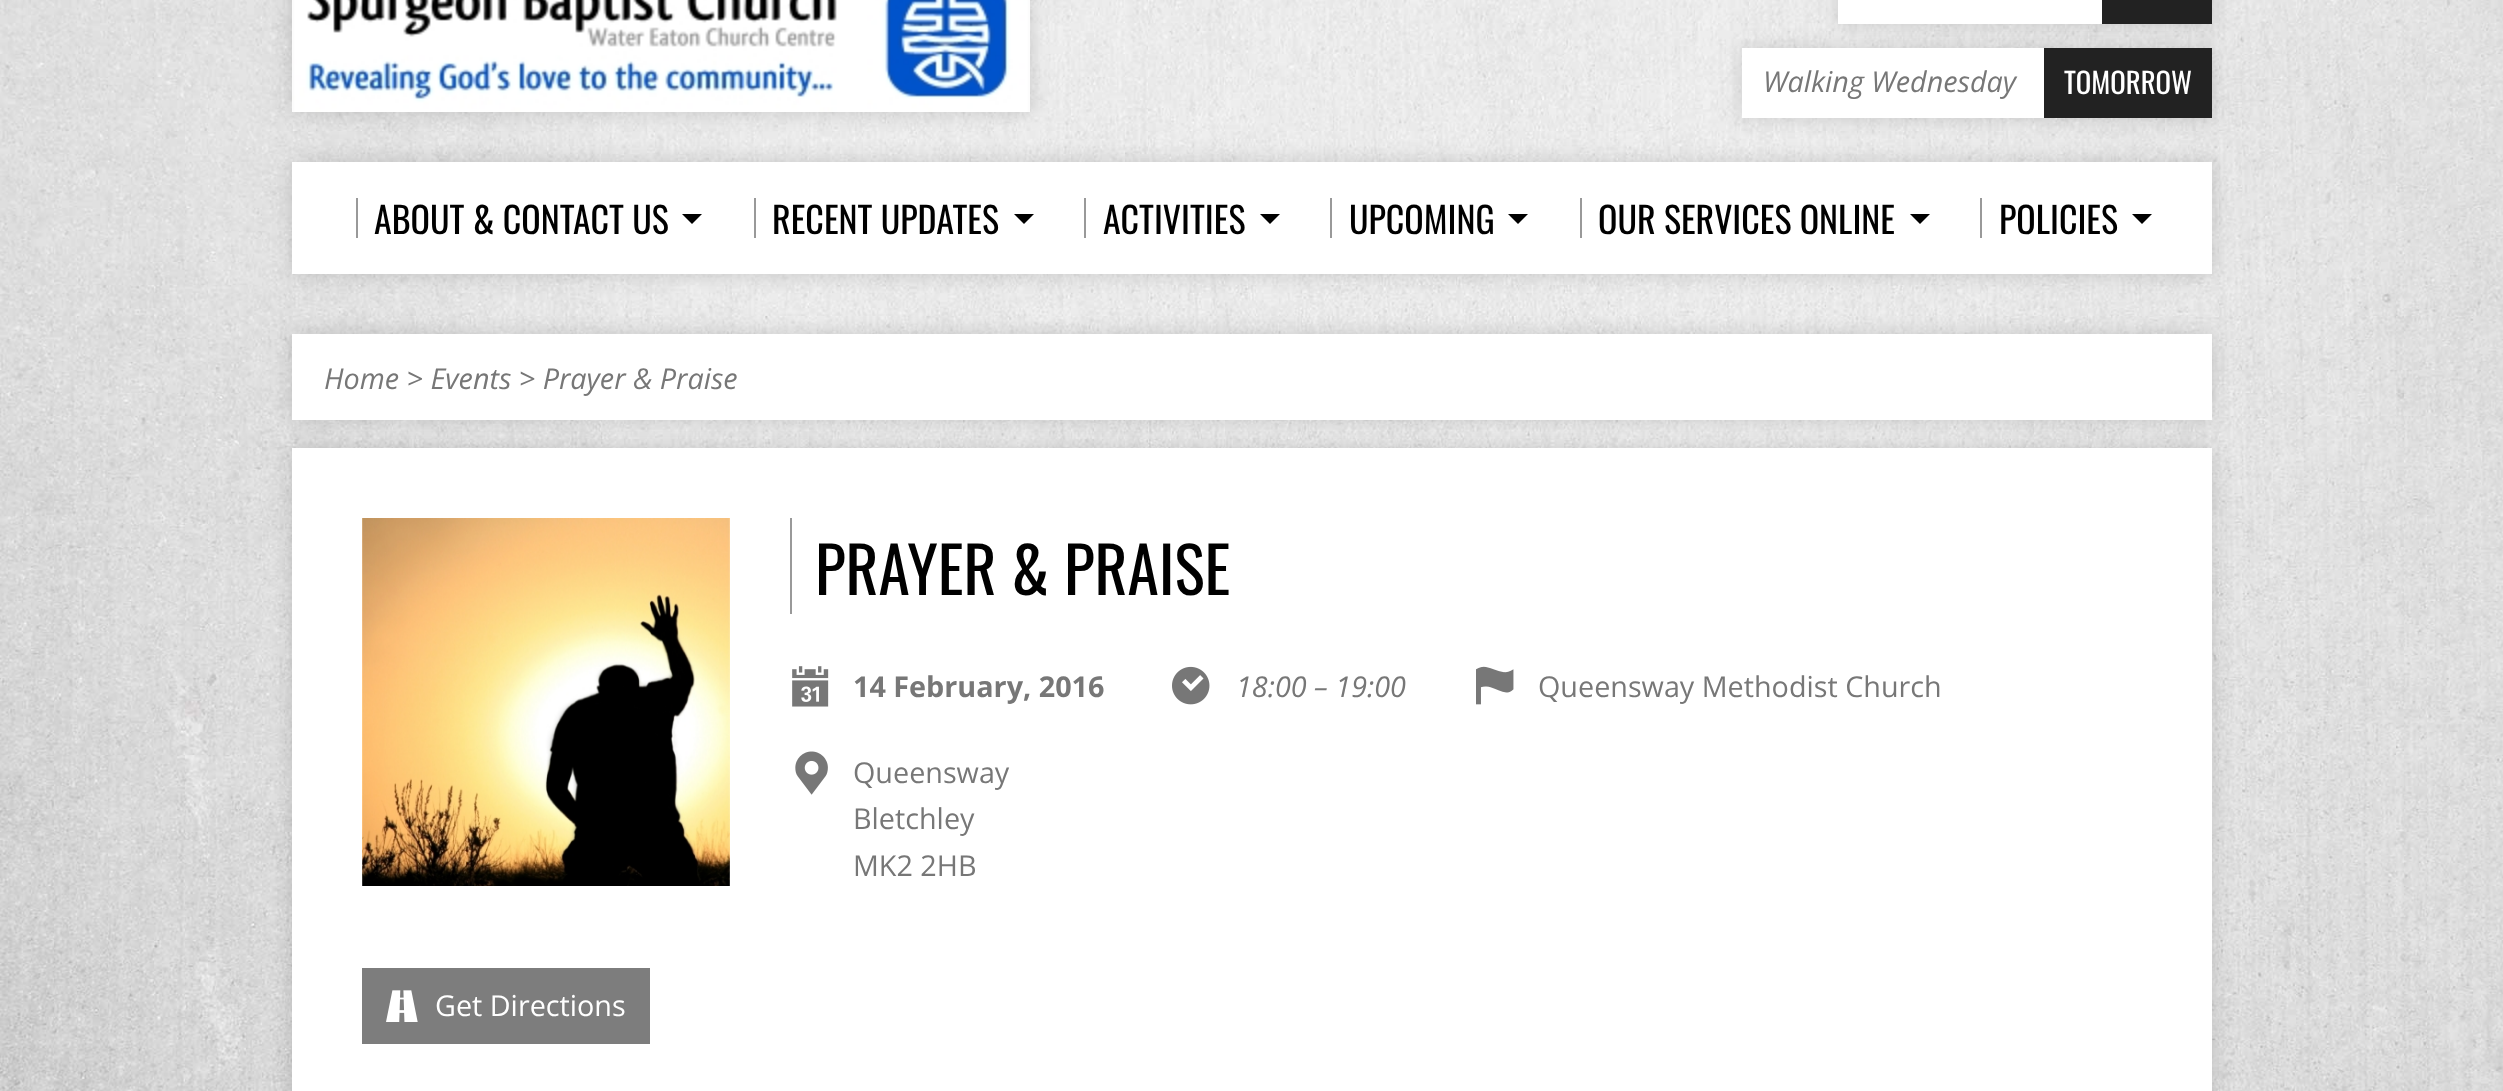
(async () => {
  const canvas = document.querySelector("canvas");
  canvas.width = 2503;
  canvas.height = 1091;
  const ctx = canvas.getContext("2d");
  ctx.miterLimit = 4;
  ctx.fontKerning = "normal";
  async function loadImage(src) {
    const img = new Image();
    img.src = src;
    await img.decode();
    return img;
  }
  let path;

  ctx.fillStyle = "#ffffff";
  ctx.fillRect(0, 0, 2503, 1091);
  ctx.drawImage(await loadImage("img/1.png"), 0, 0, 2503, 1091);
  ctx.fillStyle = "rgba(0, 0, 0, 0.15)";
  ctx.filter = "blur(10px)";
  ctx.beginPath();
  ctx.rect(292, -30, 738, 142);
  ctx.fill();
  ctx.filter = "none";
  ctx.drawImage(await loadImage("img/2.png"), 292, 0, 738, 112);
  ctx.filter = "blur(10px)";
  ctx.beginPath();
  ctx.rect(1838, -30, 374, 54);
  ctx.fill();
  ctx.filter = "none";
  ctx.fillStyle = "#ffffff";
  ctx.fillRect(1838, 0, 264, 24);
  ctx.fillStyle = "#222222";
  ctx.fillRect(2102, 0, 110, 24);
  ctx.fillStyle = "rgba(0, 0, 0, 0.15)";
  ctx.filter = "blur(10px)";
  ctx.beginPath();
  ctx.rect(1742, 48, 470, 70);
  ctx.fill();
  ctx.filter = "none";
  ctx.fillStyle = "#ffffff";
  ctx.fillRect(1742, 48, 302, 70);
  ctx.fillStyle = "#222222";
  ctx.fillRect(2044, 48, 168, 70);
  ctx.fillStyle = "rgba(0, 0, 0, 0.15)";
  ctx.filter = "blur(10px)";
  ctx.beginPath();
  ctx.rect(292, 162, 1920, 112);
  ctx.fill();
  ctx.filter = "none";
  ctx.fillStyle = "#ffffff";
  ctx.fillRect(292, 162, 1920, 112);
  ctx.fillStyle = "#999999";
  ctx.fillRect(356, 198, 2, 40);
  ctx.fillStyle = "#000000";
  path = new Path2D("M682 214H702L692 224Z");
  ctx.fill(path);
  ctx.fillStyle = "#999999";
  ctx.fillRect(754, 198, 2, 40);
  ctx.fillStyle = "#000000";
  path = new Path2D("M1014 214H1034L1024 224Z");
  ctx.fill(path);
  ctx.fillStyle = "#999999";
  ctx.fillRect(1084, 198, 2, 40);
  ctx.fillStyle = "#000000";
  path = new Path2D("M1260 214H1280L1270 224Z");
  ctx.fill(path);
  ctx.fillStyle = "#999999";
  ctx.fillRect(1330, 198, 2, 40);
  ctx.fillStyle = "#000000";
  path = new Path2D("M1508 214H1528L1518 224Z");
  ctx.fill(path);
  ctx.fillStyle = "#999999";
  ctx.fillRect(1580, 198, 2, 40);
  ctx.fillStyle = "#000000";
  path = new Path2D("M1910 214H1930L1920 224Z");
  ctx.fill(path);
  ctx.fillStyle = "#999999";
  ctx.fillRect(1980, 198, 2, 40);
  ctx.fillStyle = "#000000";
  path = new Path2D("M2132 214H2152L2142 224Z");
  ctx.fill(path);
  ctx.fillStyle = "rgba(0, 0, 0, 0.15)";
  ctx.filter = "blur(10px)";
  ctx.beginPath();
  ctx.rect(292, 334, 1920, 86);
  ctx.fill();
  ctx.filter = "none";
  ctx.fillStyle = "#ffffff";
  ctx.fillRect(292, 334, 1920, 86);
  ctx.fillStyle = "rgba(0, 0, 0, 0.15)";
  ctx.filter = "blur(10px)";
  ctx.beginPath();
  ctx.rect(292, 448, 1920, 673);
  ctx.fill();
  ctx.filter = "none";
  ctx.fillStyle = "#ffffff";
  ctx.fillRect(292, 448, 1920, 643);
  ctx.drawImage(await loadImage("img/3.png"), 362, 518, 368, 368);
  ctx.fillStyle = "#999999";
  ctx.fillRect(790, 518, 2, 96);
  ctx.drawImage(await loadImage("img/4.png"), 792, 666, 37, 41);
  ctx.drawImage(await loadImage("img/5.png"), 1172, 666, 38, 39);
  ctx.drawImage(await loadImage("img/6.png"), 1476, 666, 38, 39);
  ctx.drawImage(await loadImage("img/7.png"), 795, 751, 33, 44);
  ctx.fillStyle = "#7d7d7d";
  ctx.fillRect(362, 968, 288, 76);
  ctx.drawImage(await loadImage("img/8.png"), 386, 990, 32, 32);
  ctx.font = "italic 28.75px Open Sans";
  ctx.fillStyle = "#777777";
  ctx.fillText("Walking Wednesday", 1763, 92);
  ctx.font = "28.75px Oswald";
  ctx.fillStyle = "#ffffff";
  ctx.fillText("TOMORROW", 2064, 94);
  ctx.font = "36px Oswald";
  ctx.fillStyle = "#000000";
  for (const [text, x, y] of [
    ["ABOUT & CONTACT US", 374, 234],
    ["RECENT UPDATES", 772, 234],
    ["ACTIVITIES", 1103, 234],
    ["UPCOMING", 1349, 234],
    ["OUR SERVICES ONLINE", 1598, 234],
    ["POLICIES", 1999, 234],
  ]) {
    ctx.fillText(text, x, y);
  }
  ctx.font = "italic 28.75px Open Sans";
  ctx.fillStyle = "#777777";
  ctx.fillText("Home > Events > Prayer & Praise", 324, 389);
  ctx.font = "63.5px Oswald";
  ctx.fillStyle = "#000000";
  ctx.fillText("PRAYER & PRAISE", 815, 595);
  ctx.font = "bold 28.75px Open Sans";
  ctx.fillStyle = "#777777";
  ctx.fillText("14 February, 2016", 853, 697);
  ctx.font = "italic 28.75px Open Sans";
  ctx.fillText("18:00 – 19:00", 1236, 697);
  ctx.font = "28.75px Open Sans";
  for (const [text, x, y] of [
    ["Queensway Methodist Church", 1538, 697],
    ["Queensway", 853, 783],
    ["Bletchley", 853, 829],
    ["MK2 2HB", 853, 876],
  ]) {
    ctx.fillText(text, x, y);
  }
  ctx.fillStyle = "#ffffff";
  ctx.fillText("Get Directions", 435, 1016);
})();
